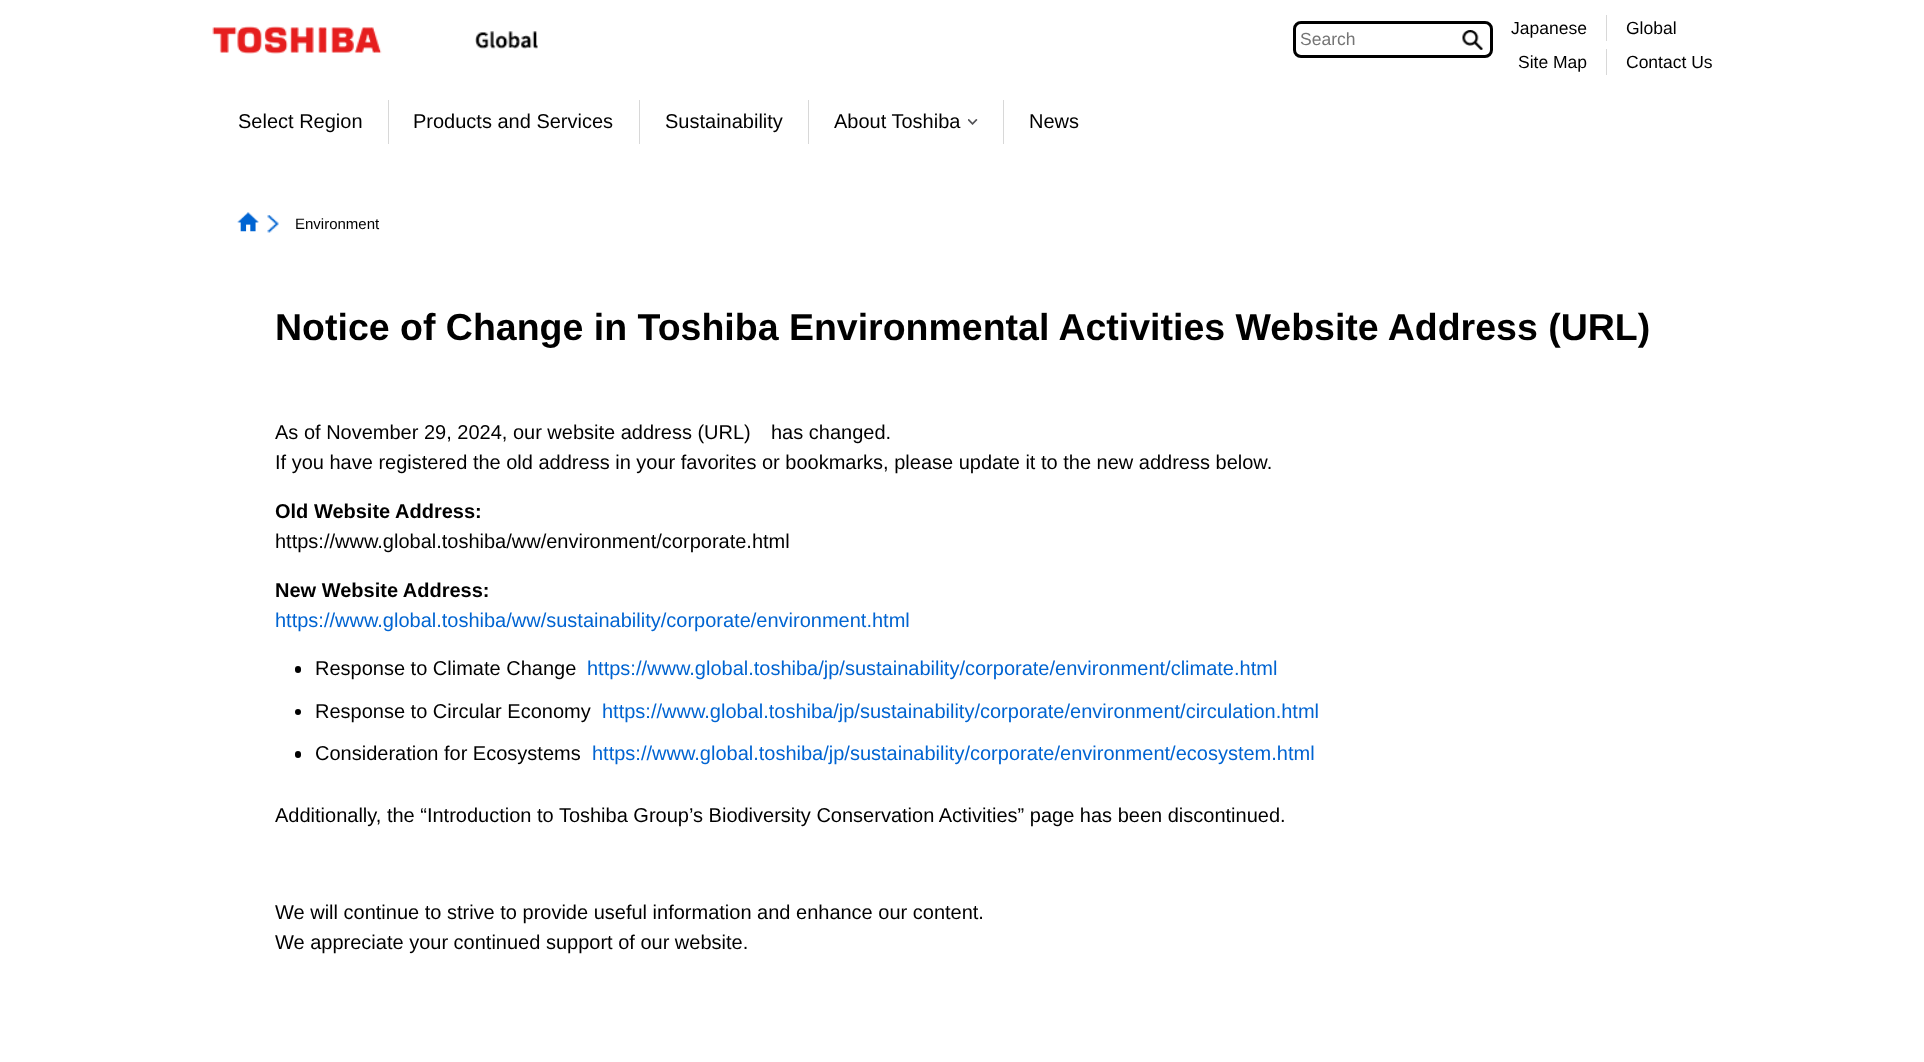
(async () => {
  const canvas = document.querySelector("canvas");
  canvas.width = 1924;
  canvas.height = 1062;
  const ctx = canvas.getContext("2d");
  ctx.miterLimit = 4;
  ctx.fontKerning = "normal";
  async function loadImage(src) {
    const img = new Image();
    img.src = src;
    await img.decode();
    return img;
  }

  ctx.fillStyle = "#ffffff";
  ctx.fillRect(0, 0, 1924, 1062);
  ctx.drawImage(await loadImage("img/1.png"), 212, 26, 170, 28);
  ctx.drawImage(await loadImage("img/2.png"), 475, 31, 63, 18);
  ctx.beginPath();
  ctx.roundRect(1294.5, 22.5, 197, 34, 6.5);
  ctx.strokeStyle = "#000000";
  ctx.lineWidth = 3;
  ctx.stroke();
  ctx.drawImage(await loadImage("img/3.png"), 1462, 30, 21, 20);
  for (const [x, y, w, h, color] of [
    [1606, 15, 1, 26, "#d8d8d8"],
    [1606, 49, 1, 26, "#d8d8d8"],
    [388, 100, 1, 44, "#d8d8d8"],
    [639, 100, 1, 44, "#d8d8d8"],
    [808, 100, 1, 44, "#d8d8d8"],
  ]) {
    ctx.fillStyle = color;
    ctx.fillRect(x, y, w, h);
  }
  ctx.drawImage(await loadImage("img/4.png"), 968, 119, 10, 6);
  ctx.fillRect(1003, 100, 1, 44);
  ctx.drawImage(await loadImage("img/5.png"), 237, 212, 22, 20);
  ctx.drawImage(await loadImage("img/6.png"), 267, 215, 12, 18);
  ctx.fillStyle = "#000000";
  ctx.beginPath();
  ctx.roundRect(295, 666, 6, 7, 3);
  ctx.fill();
  ctx.beginPath();
  ctx.arc(298, 712, 3, 0, Math.PI * 2);
  ctx.fill();
  ctx.beginPath();
  ctx.roundRect(295, 751, 6, 7, 3);
  ctx.fill();
  ctx.font = "17.5px Liberation Sans";
  ctx.fillStyle = "#757575";
  ctx.fillText("Search", 1300, 45);
  ctx.fillStyle = "#000000";
  for (const [text, x, y] of [
    ["Japanese", 1511, 34],
    ["Site Map", 1518, 68],
    ["Global", 1626, 34],
    ["Contact Us", 1626, 68],
  ]) {
    ctx.fillText(text, x, y);
  }
  ctx.font = "20px Liberation Sans";
  for (const [text, x, y] of [
    ["Select Region", 238, 128],
    ["Products and Services", 413, 128],
    ["Sustainability", 665, 128],
    ["About Toshiba", 834, 128],
    ["News", 1029, 128],
  ]) {
    ctx.fillText(text, x, y);
  }
  ctx.font = "15px Liberation Sans";
  ctx.fillText("Environment", 295, 229);
  ctx.font = "bold 37.5px Liberation Sans";
  ctx.fillText("Notice of Change in Toshiba Environmental Activities Website Address (URL)", 275, 340);
  ctx.font = "20px Liberation Sans";
  for (const [text, x, y] of [
    ["As of November 29, 2024, our website address (URL)", 275, 439],
    ["has changed.", 771, 439],
    ["If you have registered the old address in your favorites or bookmarks, please update it to the new address below.", 275, 469],
  ]) {
    ctx.fillText(text, x, y);
  }
  ctx.font = "bold 20px Liberation Sans";
  ctx.fillText("Old Website Address:", 275, 518);
  ctx.font = "20px Liberation Sans";
  ctx.fillText("https://www.global.toshiba/ww/environment/corporate.html", 275, 548);
  ctx.font = "bold 20px Liberation Sans";
  ctx.fillText("New Website Address:", 275, 597);
  ctx.font = "20px Liberation Sans";
  ctx.fillStyle = "#0064d2";
  ctx.fillText("https://www.global.toshiba/ww/sustainability/corporate/environment.html", 275, 627);
  ctx.fillStyle = "#000000";
  ctx.fillText("Response to Climate Change", 315, 675);
  ctx.fillStyle = "#0064d2";
  ctx.fillText("https://www.global.toshiba/jp/sustainability/corporate/environment/climate.html", 587, 675);
  ctx.fillStyle = "#000000";
  ctx.fillText("Response to Circular Economy", 315, 718);
  ctx.fillStyle = "#0064d2";
  ctx.fillText("https://www.global.toshiba/jp/sustainability/corporate/environment/circulation.html", 602, 718);
  ctx.fillStyle = "#000000";
  ctx.fillText("Consideration for Ecosystems", 315, 760);
  ctx.fillStyle = "#0064d2";
  ctx.fillText("https://www.global.toshiba/jp/sustainability/corporate/environment/ecosystem.html", 592, 760);
  ctx.fillStyle = "#000000";
  for (const [text, x, y] of [
    ["Additionally, the “Introduction to Toshiba Group’s Biodiversity Conservation Activities” page has been discontinued.", 275, 822],
    ["We will continue to strive to provide useful information and enhance our content.", 275, 919],
    ["We appreciate your continued support of our website.", 275, 949],
  ]) {
    ctx.fillText(text, x, y);
  }
})();
